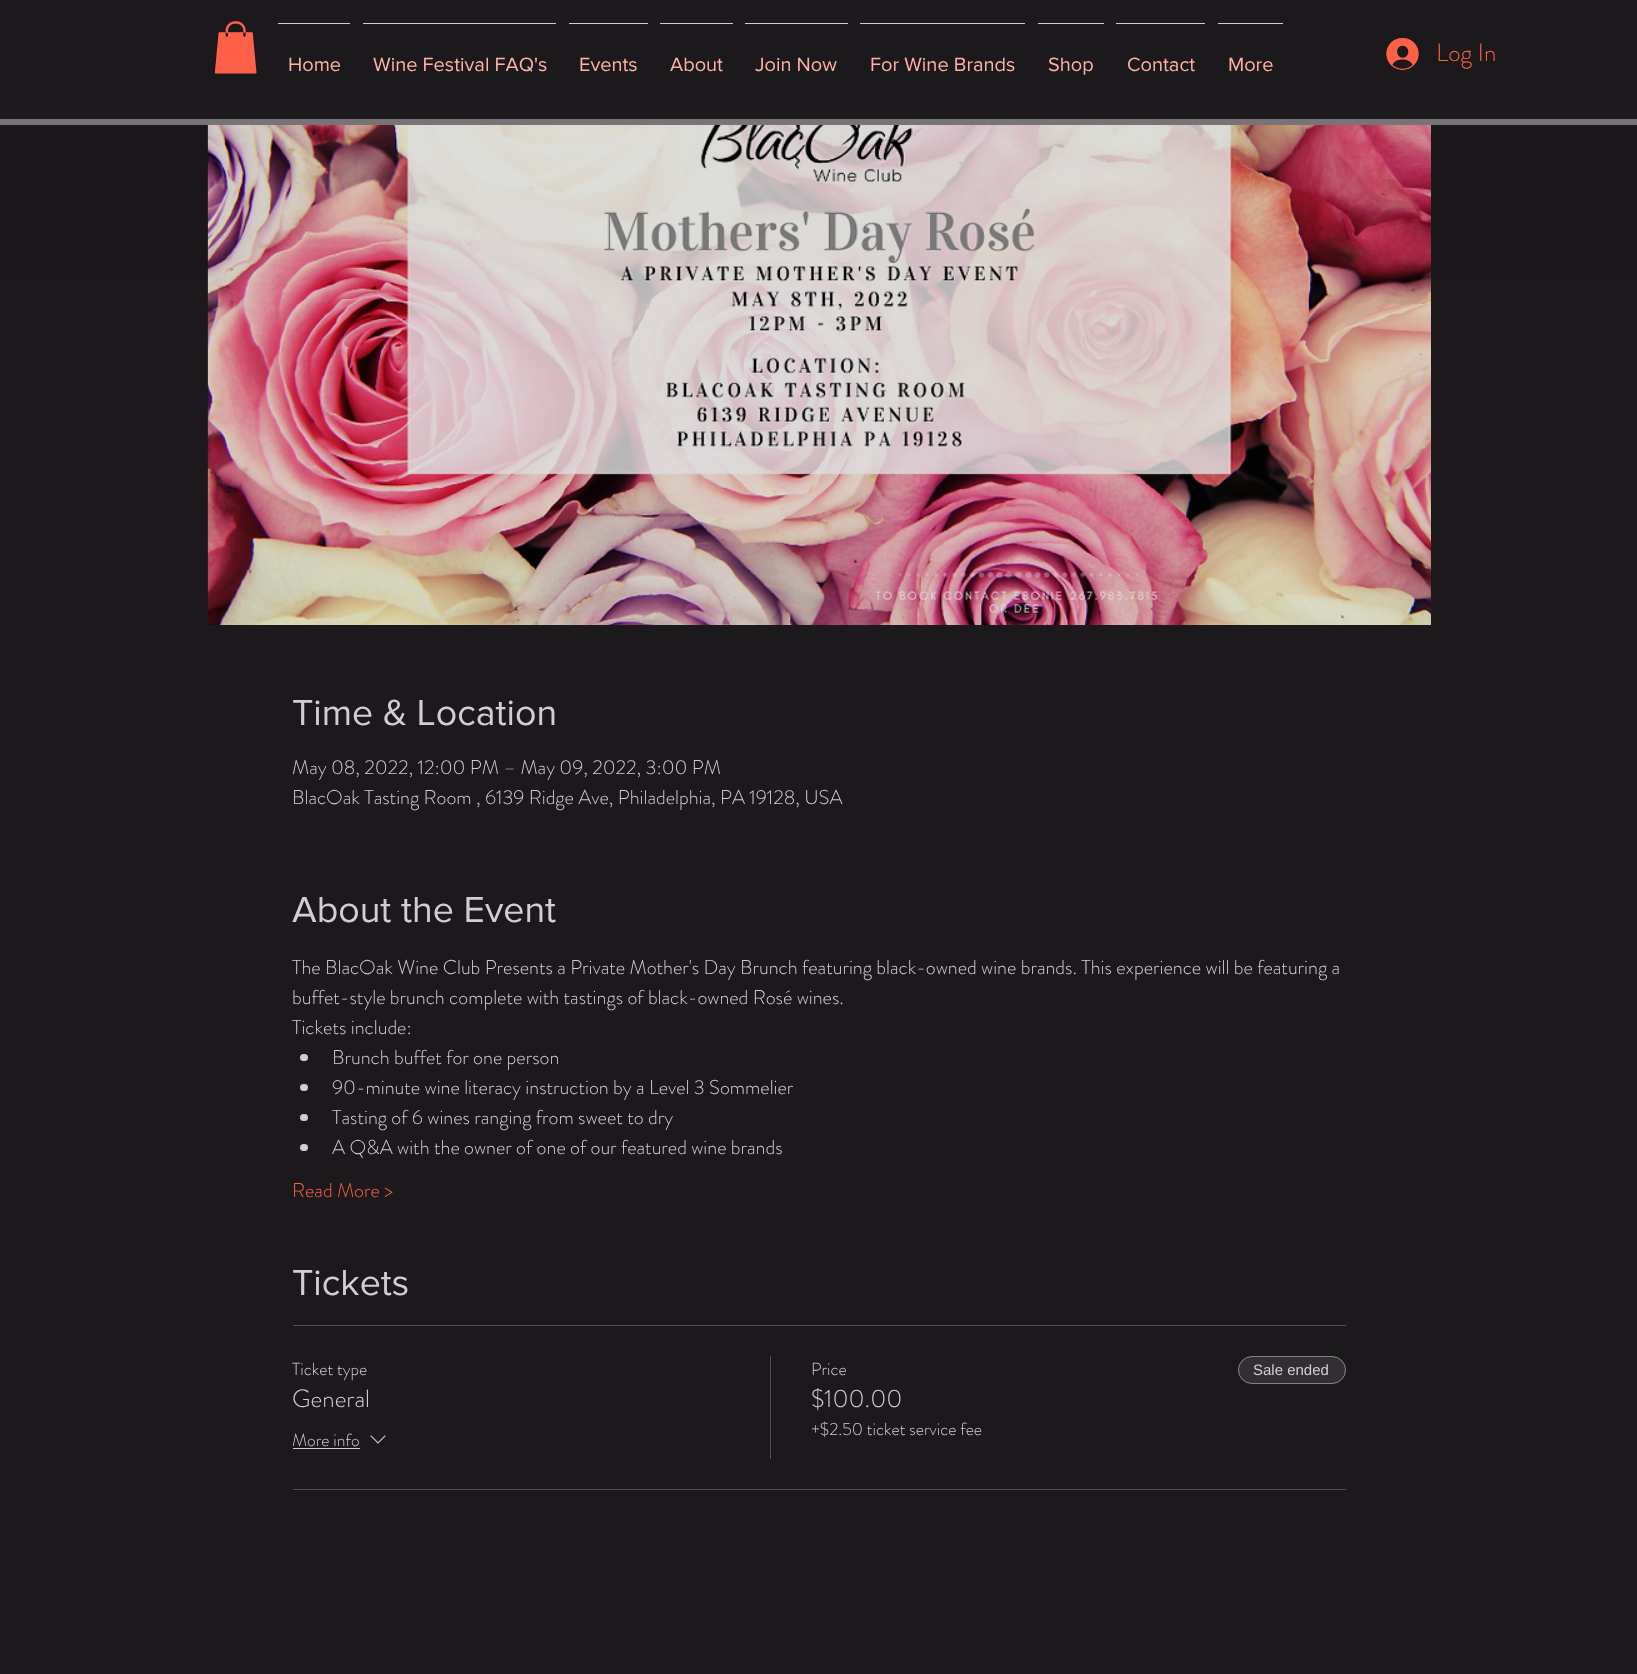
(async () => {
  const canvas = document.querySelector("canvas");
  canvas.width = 1637;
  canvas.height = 1674;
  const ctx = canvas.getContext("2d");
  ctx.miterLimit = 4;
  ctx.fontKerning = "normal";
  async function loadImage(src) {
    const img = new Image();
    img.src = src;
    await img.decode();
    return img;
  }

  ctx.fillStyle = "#1c191c";
  ctx.fillRect(0, 0, 1637, 1674);
  ctx.drawImage(await loadImage("img/1.png"), 214, 21, 43, 53);
  for (const [x, y, w, h, color] of [
    [278, 23, 72, 1, "#d2cdd2"],
    [363, 23, 193, 1, "#d2cdd2"],
    [569, 23, 79, 1, "#d2cdd2"],
    [660, 23, 73, 1, "#d2cdd2"],
    [745, 23, 103, 1, "#d2cdd2"],
    [860, 23, 165, 1, "#d2cdd2"],
    [1038, 23, 66, 1, "#d2cdd2"],
    [1116, 23, 89, 1, "#d2cdd2"],
    [1218, 23, 65, 1, "#d2cdd2"],
  ]) {
    ctx.fillStyle = color;
    ctx.fillRect(x, y, w, h);
  }
  ctx.drawImage(await loadImage("img/2.png"), 1386, 38, 33, 32);
  ctx.fillStyle = "#777377";
  ctx.fillRect(0, 119, 1637, 6);
  ctx.fillStyle = "#191719";
  ctx.fillRect(0, 125, 1637, 155);
  ctx.drawImage(await loadImage("img/3.png"), 207, 125, 1224, 500);
  ctx.fillStyle = "#d2cdd2";
  ctx.beginPath();
  ctx.roundRect(300, 1054, 8, 7, 3.5);
  ctx.fill();
  ctx.beginPath();
  ctx.roundRect(300, 1084, 8, 7, 3.5);
  ctx.fill();
  ctx.beginPath();
  ctx.roundRect(300, 1114, 8, 7, 3.5);
  ctx.fill();
  ctx.beginPath();
  ctx.roundRect(300, 1144, 8, 7, 3.5);
  ctx.fill();
  for (const [x, y, w, h, color] of [
    [293, 1325, 1053, 1, "#534f53"],
    [293, 1489, 1053, 1, "#534f53"],
    [293, 1448, 67, 1, "#d2cdd2"],
  ]) {
    ctx.fillStyle = color;
    ctx.fillRect(x, y, w, h);
  }
  ctx.drawImage(await loadImage("img/4.png"), 370, 1435, 16, 9);
  ctx.fillStyle = "#534f53";
  ctx.fillRect(770, 1356, 1, 103);
  ctx.fillStyle = "#322f32";
  ctx.beginPath();
  ctx.roundRect(1238, 1356, 108, 28, 14);
  ctx.fill();
  ctx.beginPath();
  ctx.roundRect(1238.5, 1356.5, 107, 27, 13.5);
  ctx.strokeStyle = "rgba(255, 255, 255, 0.4)";
  ctx.stroke();
  ctx.font = "20px 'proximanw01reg'";
  ctx.fillStyle = "#feb0a3";
  for (const [text, x, y] of [
    ["Home", 288, 71],
    ["Wine Festival FAQ's", 373, 71],
    ["Events", 579, 71],
    ["About", 670, 71],
    ["Join Now", 755, 71],
    ["For Wine Brands", 870, 71],
    ["Shop", 1048, 71],
    ["Contact", 1127, 71],
    ["More", 1228, 71],
  ]) {
    ctx.fillText(text, x, y);
  }
  ctx.font = "300 25px 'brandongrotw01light'";
  ctx.fillStyle = "#fe6148";
  ctx.fillText("Log In", 1436, 61);
  ctx.font = "37.5px 'proximanw01reg'";
  ctx.fillStyle = "#d2cdd2";
  ctx.fillText("Time & Location", 292, 725);
  ctx.font = "300 20px 'brandongrotw01light'";
  ctx.fillText("May 08, 2022, 12:00 PM – May 09, 2022, 3:00 PM", 292, 774);
  ctx.fillText("BlacOak Tasting Room , 6139 Ridge Ave, Philadelphia, PA 19128, USA", 292, 804);
  ctx.font = "37.5px 'proximanw01reg'";
  ctx.fillText("About the Event", 292, 922);
  ctx.font = "300 20px 'brandongrotw01light'";
  for (const [text, x, y] of [
    ["The BlacOak Wine Club Presents a Private Mother's Day Brunch featuring black-owned wine brands. This experience will be featuring a", 292, 974],
    ["buffet-style brunch complete with tastings of black-owned Rosé wines.", 292, 1004],
    ["Tickets include:", 292, 1034],
    ["Brunch buffet for one person", 332, 1064],
    ["90-minute wine literacy instruction by a Level 3 Sommelier", 332, 1094],
    ["Tasting of 6 wines ranging from sweet to dry", 332, 1124],
    ["A Q&A with the owner of one of our featured wine brands", 332, 1154],
  ]) {
    ctx.fillText(text, x, y);
  }
  ctx.fillStyle = "#fe6148";
  ctx.fillText("Read More >", 292, 1197);
  ctx.font = "37.5px 'proximanw01reg'";
  ctx.fillStyle = "#d2cdd2";
  ctx.fillText("Tickets", 292, 1295);
  ctx.font = "300 17.5px 'brandongrotw01light'";
  ctx.fillText("Ticket type", 292, 1375);
  ctx.font = "300 25px 'brandongrotw01light'";
  ctx.fillText("General", 292, 1407);
  ctx.font = "300 17.5px 'brandongrotw01light'";
  ctx.fillText("More info", 292, 1446);
  ctx.fillText("Price", 811, 1375);
  ctx.font = "300 25px 'brandongrotw01light'";
  ctx.fillText("$100.00", 811, 1407);
  ctx.font = "300 17.5px 'brandongrotw01light'";
  ctx.fillText("+$2.50 ticket service fee", 811, 1435);
  ctx.font = "15px Liberation Sans";
  ctx.fillText("Sale ended", 1253, 1375);
})();
